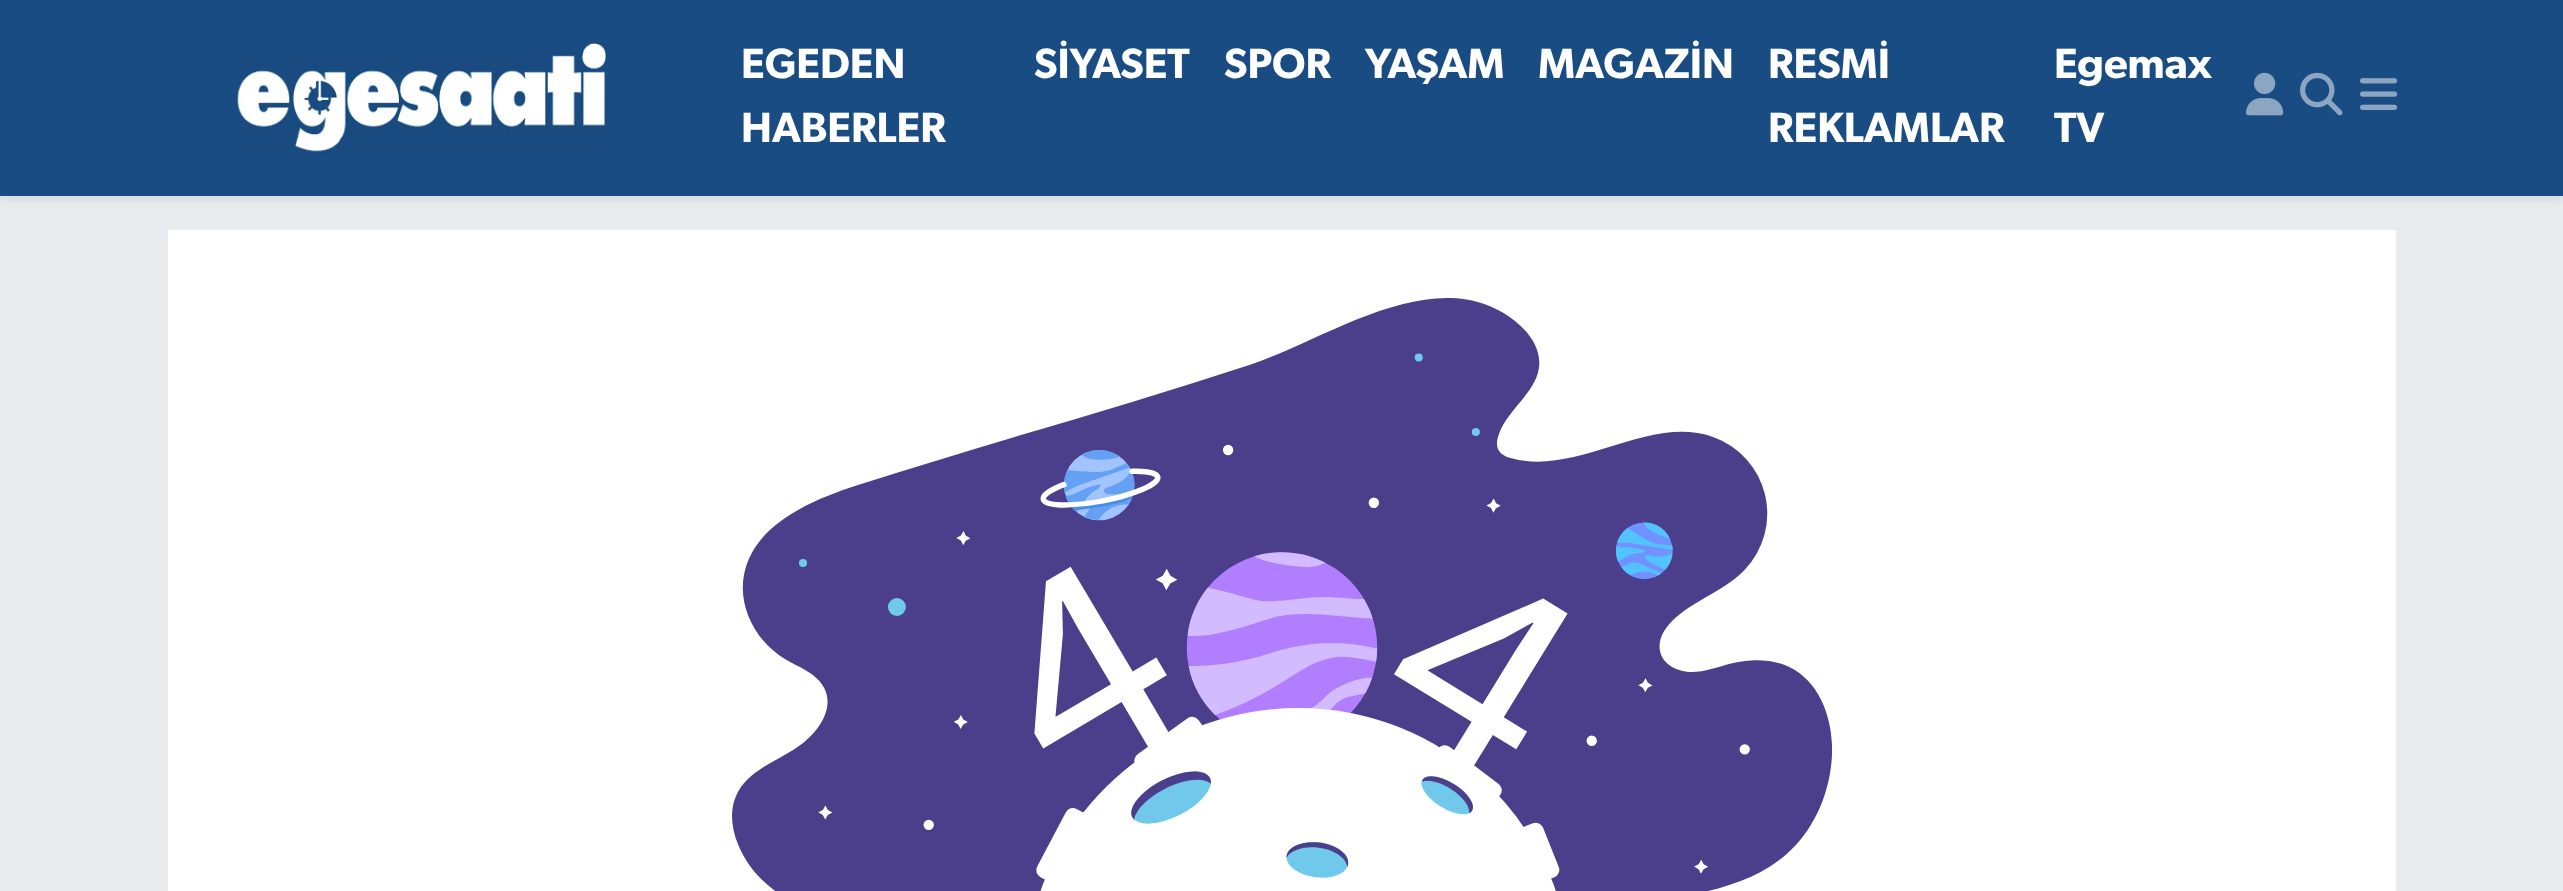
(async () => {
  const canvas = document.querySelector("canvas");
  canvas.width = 2563;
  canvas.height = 891;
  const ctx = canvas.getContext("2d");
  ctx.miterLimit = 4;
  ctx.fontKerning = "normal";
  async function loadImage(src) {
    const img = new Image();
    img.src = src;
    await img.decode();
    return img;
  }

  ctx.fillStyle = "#e9ecef";
  ctx.fillRect(0, 0, 2563, 891);
  ctx.fillStyle = "rgba(0, 0, 0, 0.07)";
  ctx.filter = "blur(4px)";
  ctx.beginPath();
  ctx.rect(0, 4, 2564, 196);
  ctx.fill();
  ctx.filter = "none";
  ctx.fillStyle = "#194c82";
  ctx.fillRect(0, 0, 2563, 196);
  ctx.drawImage(await loadImage("img/1.png"), 236, 42, 371, 111);
  ctx.drawImage(await loadImage("img/2.png"), 2246, 72, 38, 44);
  ctx.drawImage(await loadImage("img/3.png"), 2300, 72, 43, 44);
  ctx.drawImage(await loadImage("img/4.png"), 2360, 78, 38, 32);
  ctx.fillStyle = "#ffffff";
  ctx.fillRect(168, 230, 2228, 661);
  ctx.drawImage(await loadImage("img/5.png"), 732, 298, 1100, 593);
  ctx.font = "600 42.5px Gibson";
  for (const [text, x, y] of [
    ["EGEDEN", 741, 78],
    ["HABERLER", 741, 142],
    ["SİYASET", 1034, 78],
    ["SPOR", 1224, 78],
    ["YAŞAM", 1365, 78],
    ["MAGAZİN", 1538, 78],
    ["RESMİ", 1768, 78],
    ["REKLAMLAR", 1768, 142],
    ["Egemax", 2054, 78],
    ["TV", 2054, 142],
  ]) {
    ctx.fillText(text, x, y);
  }
})();
